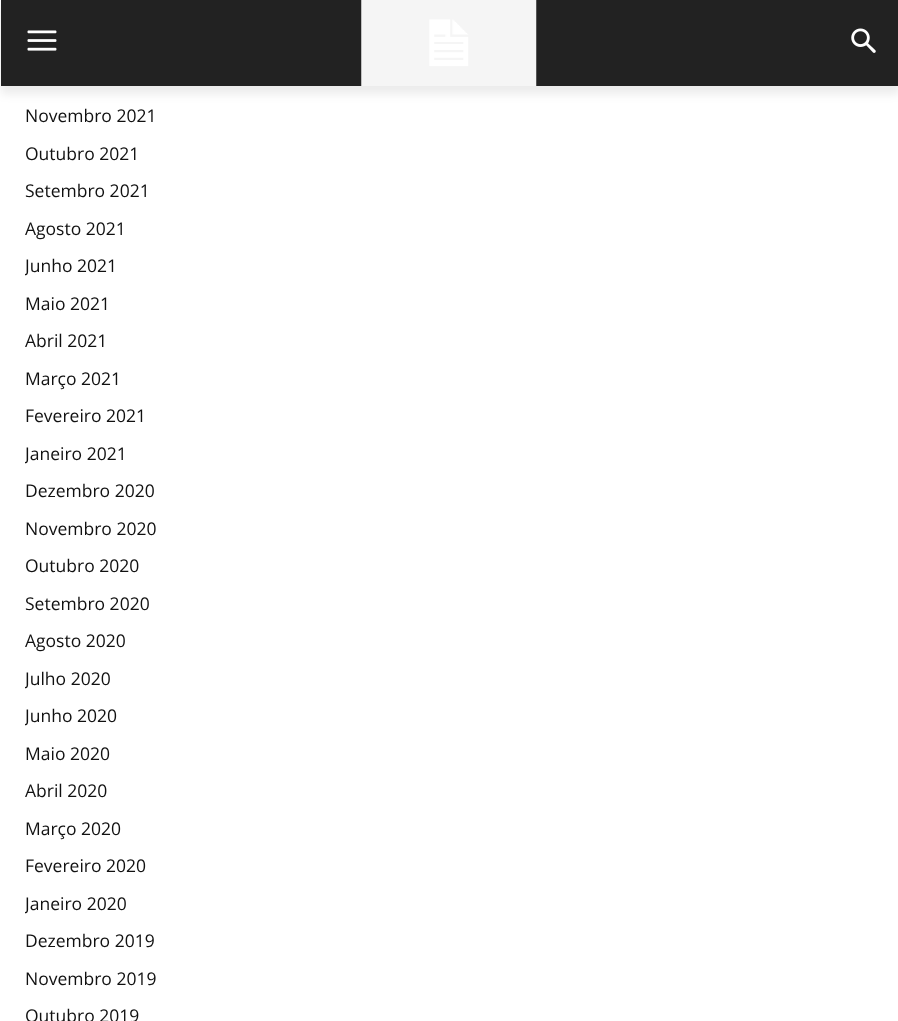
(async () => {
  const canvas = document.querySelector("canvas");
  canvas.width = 898;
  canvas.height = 1021;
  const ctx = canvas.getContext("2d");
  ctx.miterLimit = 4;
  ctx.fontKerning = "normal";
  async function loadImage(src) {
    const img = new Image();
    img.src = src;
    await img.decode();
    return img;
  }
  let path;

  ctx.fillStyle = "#ffffff";
  ctx.fillRect(0, 0, 898, 1021);
  ctx.fillStyle = "#222222";
  ctx.fillRect(1, 0, 897, 86);
  ctx.drawImage(await loadImage("img/1.png"), 27, 30, 30, 21);
  ctx.drawImage(await loadImage("img/2.png"), 361, 0, 176, 86);
  ctx.drawImage(await loadImage("img/3.png"), 851, 28, 25, 25);
  ctx.save();
  path = new Path2D("M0 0H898V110H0ZM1 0H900V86H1Z");
  ctx.clip(path, "evenodd");
  ctx.fillStyle = "rgba(0, 0, 0, 0.08)";
  ctx.filter = "blur(5px)";
  ctx.beginPath();
  ctx.rect(1, 8, 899, 86);
  ctx.fill();
  ctx.filter = "none";
  ctx.restore();
  ctx.font = "17.5px Open Sans";
  ctx.fillStyle = "#111111";
  for (const [text, x, y] of [
    ["Novembro 2021", 25, 122],
    ["Outubro 2021", 25, 160],
    ["Setembro 2021", 25, 197],
    ["Agosto 2021", 25, 235],
  ]) {
    ctx.fillText(text, x, y);
  }
  ctx.save();
  ctx.beginPath();
  ctx.rect(25, 0, 849, 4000);
  ctx.clip();
  ctx.fillText("Junho 2021", 25, 272);
  ctx.restore();
  for (const [text, x, y] of [
    ["Maio 2021", 25, 310],
    ["Abril 2021", 25, 347],
    ["Março 2021", 25, 385],
    ["Fevereiro 2021", 25, 422],
  ]) {
    ctx.fillText(text, x, y);
  }
  ctx.save();
  ctx.beginPath();
  ctx.rect(25, 0, 849, 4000);
  ctx.clip();
  ctx.fillText("Janeiro 2021", 25, 460);
  ctx.restore();
  for (const [text, x, y] of [
    ["Dezembro 2020", 25, 497],
    ["Novembro 2020", 25, 535],
    ["Outubro 2020", 25, 572],
    ["Setembro 2020", 25, 610],
    ["Agosto 2020", 25, 647],
  ]) {
    ctx.fillText(text, x, y);
  }
  ctx.save();
  ctx.beginPath();
  ctx.rect(25, 0, 849, 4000);
  ctx.clip();
  ctx.fillText("Julho 2020", 25, 685);
  ctx.fillText("Junho 2020", 25, 722);
  ctx.restore();
  for (const [text, x, y] of [
    ["Maio 2020", 25, 760],
    ["Abril 2020", 25, 797],
    ["Março 2020", 25, 835],
    ["Fevereiro 2020", 25, 872],
  ]) {
    ctx.fillText(text, x, y);
  }
  ctx.save();
  ctx.beginPath();
  ctx.rect(25, 0, 849, 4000);
  ctx.clip();
  ctx.fillText("Janeiro 2020", 25, 910);
  ctx.restore();
  for (const [text, x, y] of [
    ["Dezembro 2019", 25, 947],
    ["Novembro 2019", 25, 985],
    ["Outubro 2019", 25, 1022],
  ]) {
    ctx.fillText(text, x, y);
  }
})();
